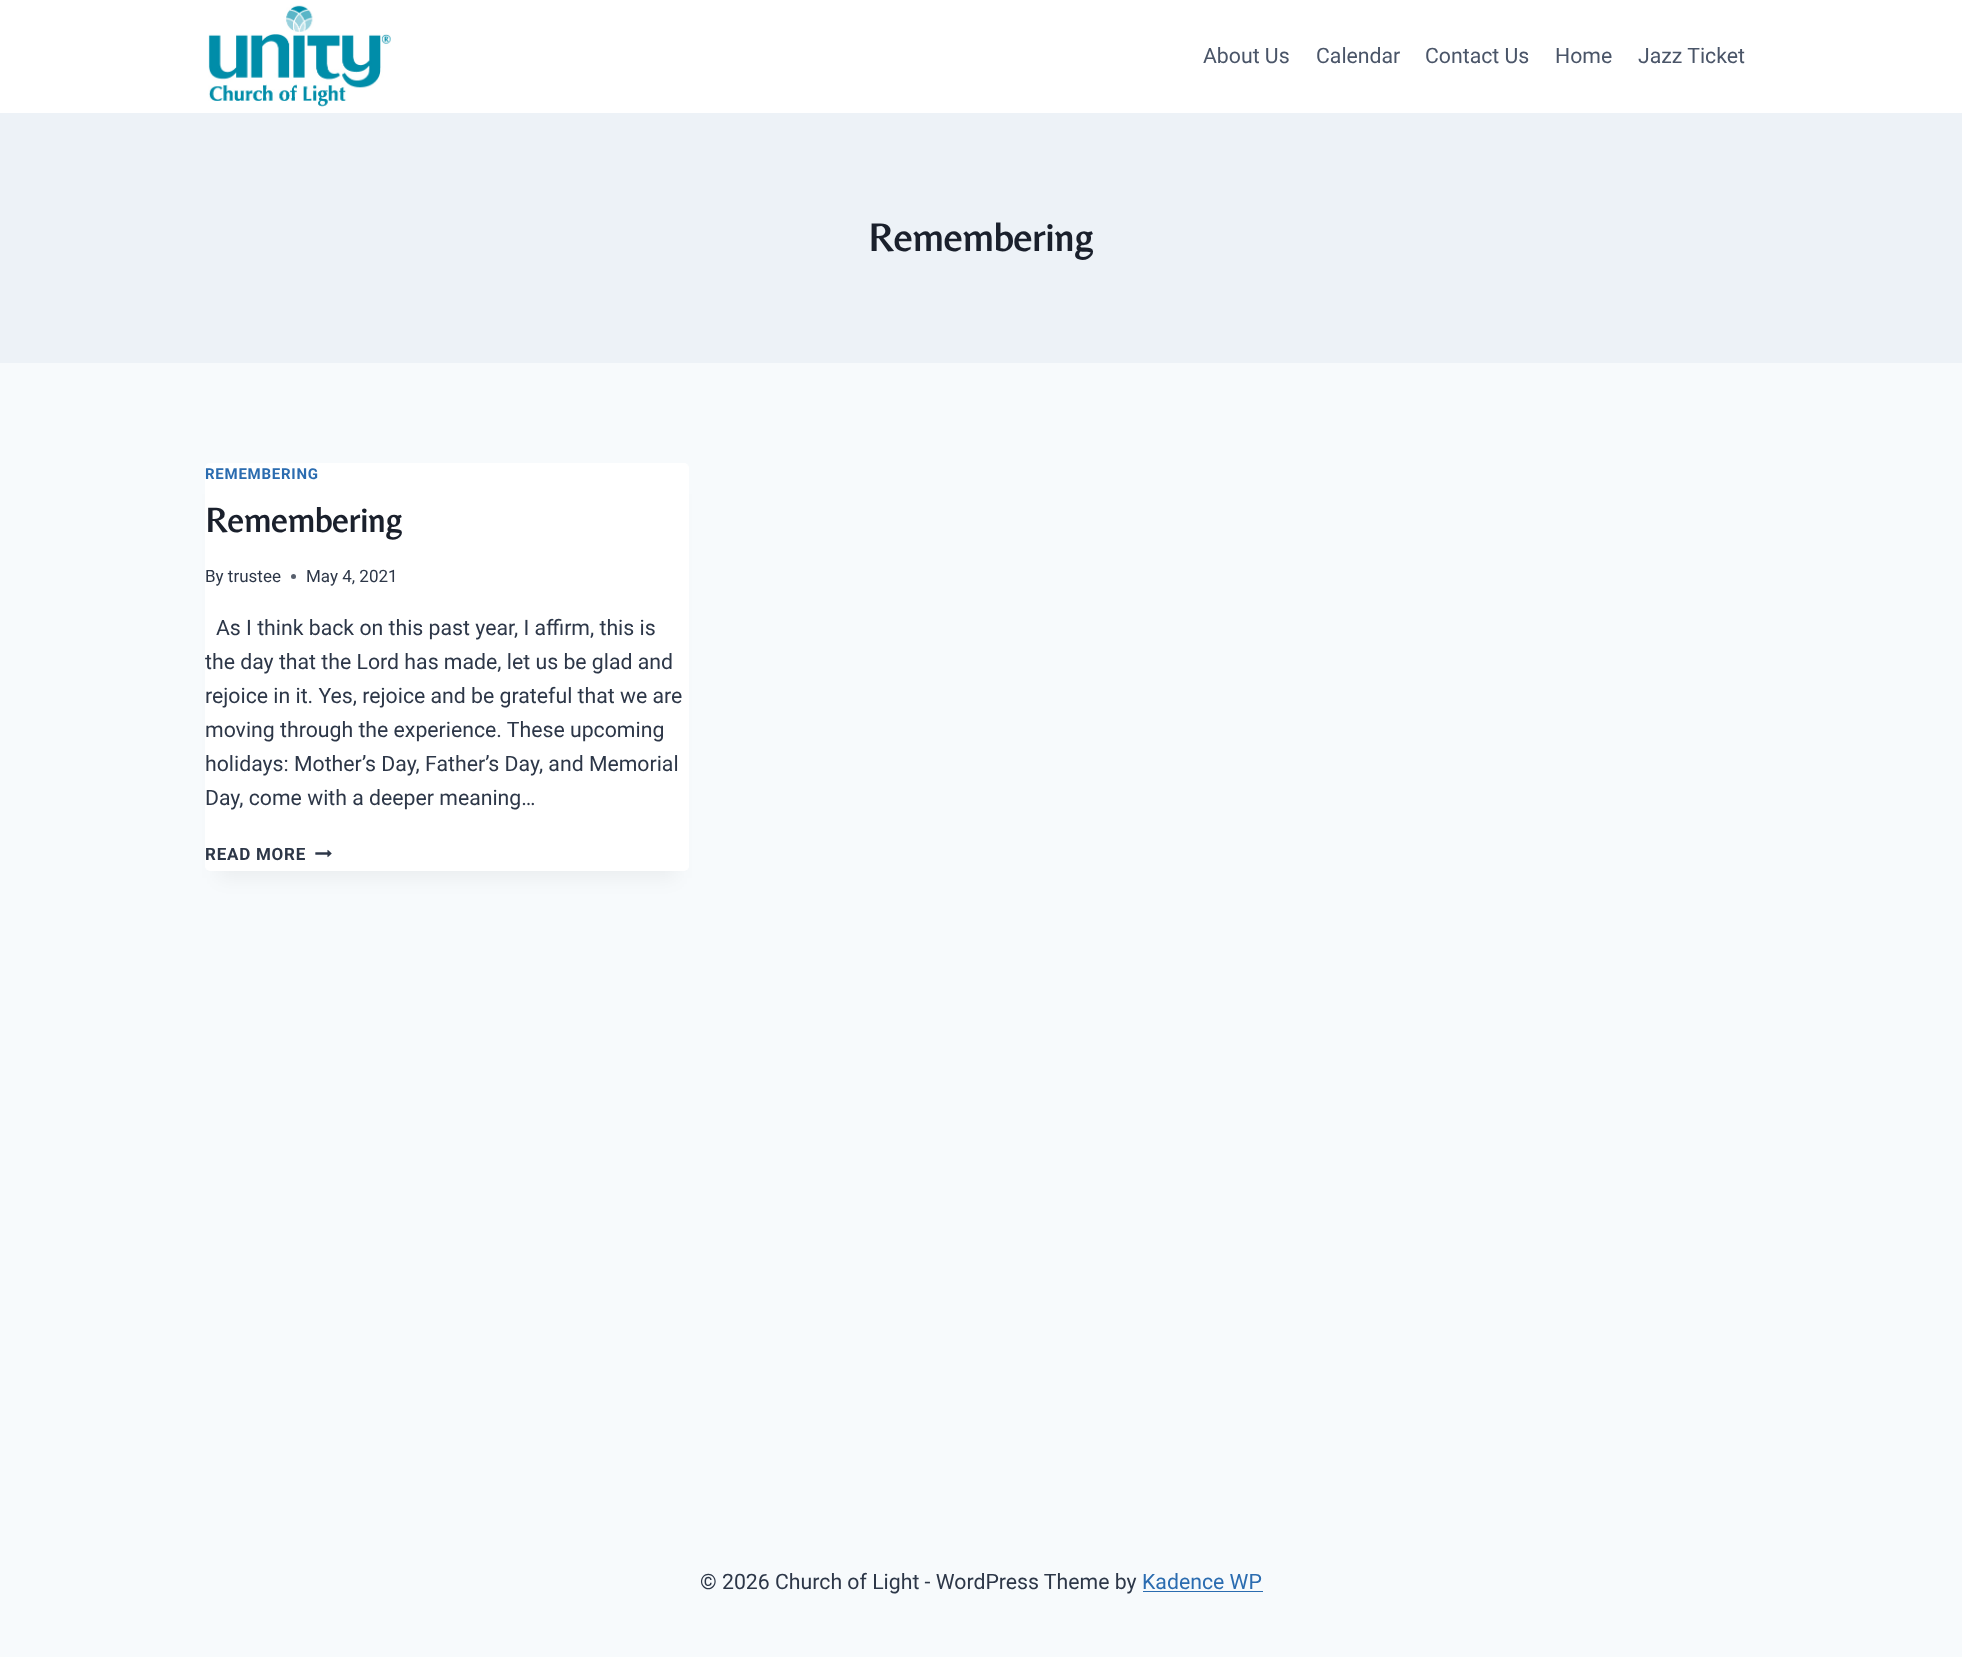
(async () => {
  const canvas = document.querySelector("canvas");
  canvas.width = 1962;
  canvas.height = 1657;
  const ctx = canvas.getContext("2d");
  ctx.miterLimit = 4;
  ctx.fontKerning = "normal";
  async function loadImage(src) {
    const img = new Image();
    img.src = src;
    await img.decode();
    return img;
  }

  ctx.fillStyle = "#f7fafc";
  ctx.fillRect(0, 0, 1962, 1657);
  ctx.fillStyle = "#ffffff";
  ctx.fillRect(0, 0, 1962, 113);
  ctx.drawImage(await loadImage("img/1.png"), 208, 5, 183, 102);
  ctx.fillStyle = "#edf2f7";
  ctx.fillRect(0, 113, 1962, 250);
  ctx.fillStyle = "rgba(0, 0, 0, 0.05)";
  ctx.filter = "blur(9.5px)";
  ctx.beginPath();
  ctx.rect(218, 494, 458, 384);
  ctx.fill();
  ctx.filter = "none";
  ctx.fillStyle = "#ffffff";
  ctx.beginPath();
  ctx.roundRect(205, 463, 484, 408, 5);
  ctx.fill();
  ctx.fillStyle = "#575f6d";
  ctx.beginPath();
  ctx.arc(293.5, 576.5, 2.5, 0, Math.PI * 2);
  ctx.fill();
  ctx.drawImage(await loadImage("img/2.png"), 315, 849, 17, 9);
  ctx.fillStyle = "#2b6cb0";
  ctx.fillRect(1143, 1591, 120, 1);
  ctx.font = "21.25px Roboto";
  ctx.fillStyle = "#4a5568";
  for (const [text, x, y] of [
    ["About Us", 1203, 63],
    ["Calendar", 1316, 63],
    ["Contact Us", 1425, 63],
    ["Home", 1555, 63],
    ["Jazz Ticket", 1638, 63],
  ]) {
    ctx.fillText(text, x, y);
  }
  ctx.font = "bold 40px Belleza";
  ctx.fillStyle = "#1a202c";
  ctx.fillText("Remembering", 868, 251);
  ctx.letterSpacing = "0.75px";
  ctx.font = "bold 15px Roboto";
  ctx.fillStyle = "#2b6cb0";
  ctx.fillText("REMEMBERING", 205, 479);
  ctx.letterSpacing = "0px";
  ctx.font = "bold 35px Belleza";
  ctx.fillStyle = "#1a202c";
  ctx.fillText("Remembering", 205, 532);
  ctx.font = "17px Roboto";
  ctx.fillStyle = "#2d3748";
  ctx.fillText("By trustee", 205, 582);
  ctx.fillText("May 4, 2021", 306, 582);
  ctx.font = "21.25px Roboto";
  for (const [text, x, y] of [
    ["As I think back on this past year, I affirm, this is", 216, 635],
    ["the day that the Lord has made, let us be glad and", 205, 669],
    ["rejoice in it. Yes, rejoice and be grateful that we are", 205, 703],
    ["moving through the experience. These upcoming", 205, 737],
    ["holidays: Mother’s Day, Father’s Day, and Memorial", 205, 771],
    ["Day, come with a deeper meaning…", 205, 805],
  ]) {
    ctx.fillText(text, x, y);
  }
  ctx.letterSpacing = "0.75px";
  ctx.font = "bold 17px Roboto";
  ctx.fillText("READ MORE", 205, 860);
  ctx.letterSpacing = "0px";
  ctx.font = "21.25px Roboto";
  ctx.fillText("© 2026 Church of Light - WordPress Theme by", 700, 1589);
  ctx.fillStyle = "#2b6cb0";
  ctx.fillText("Kadence WP", 1142, 1589);
})();
